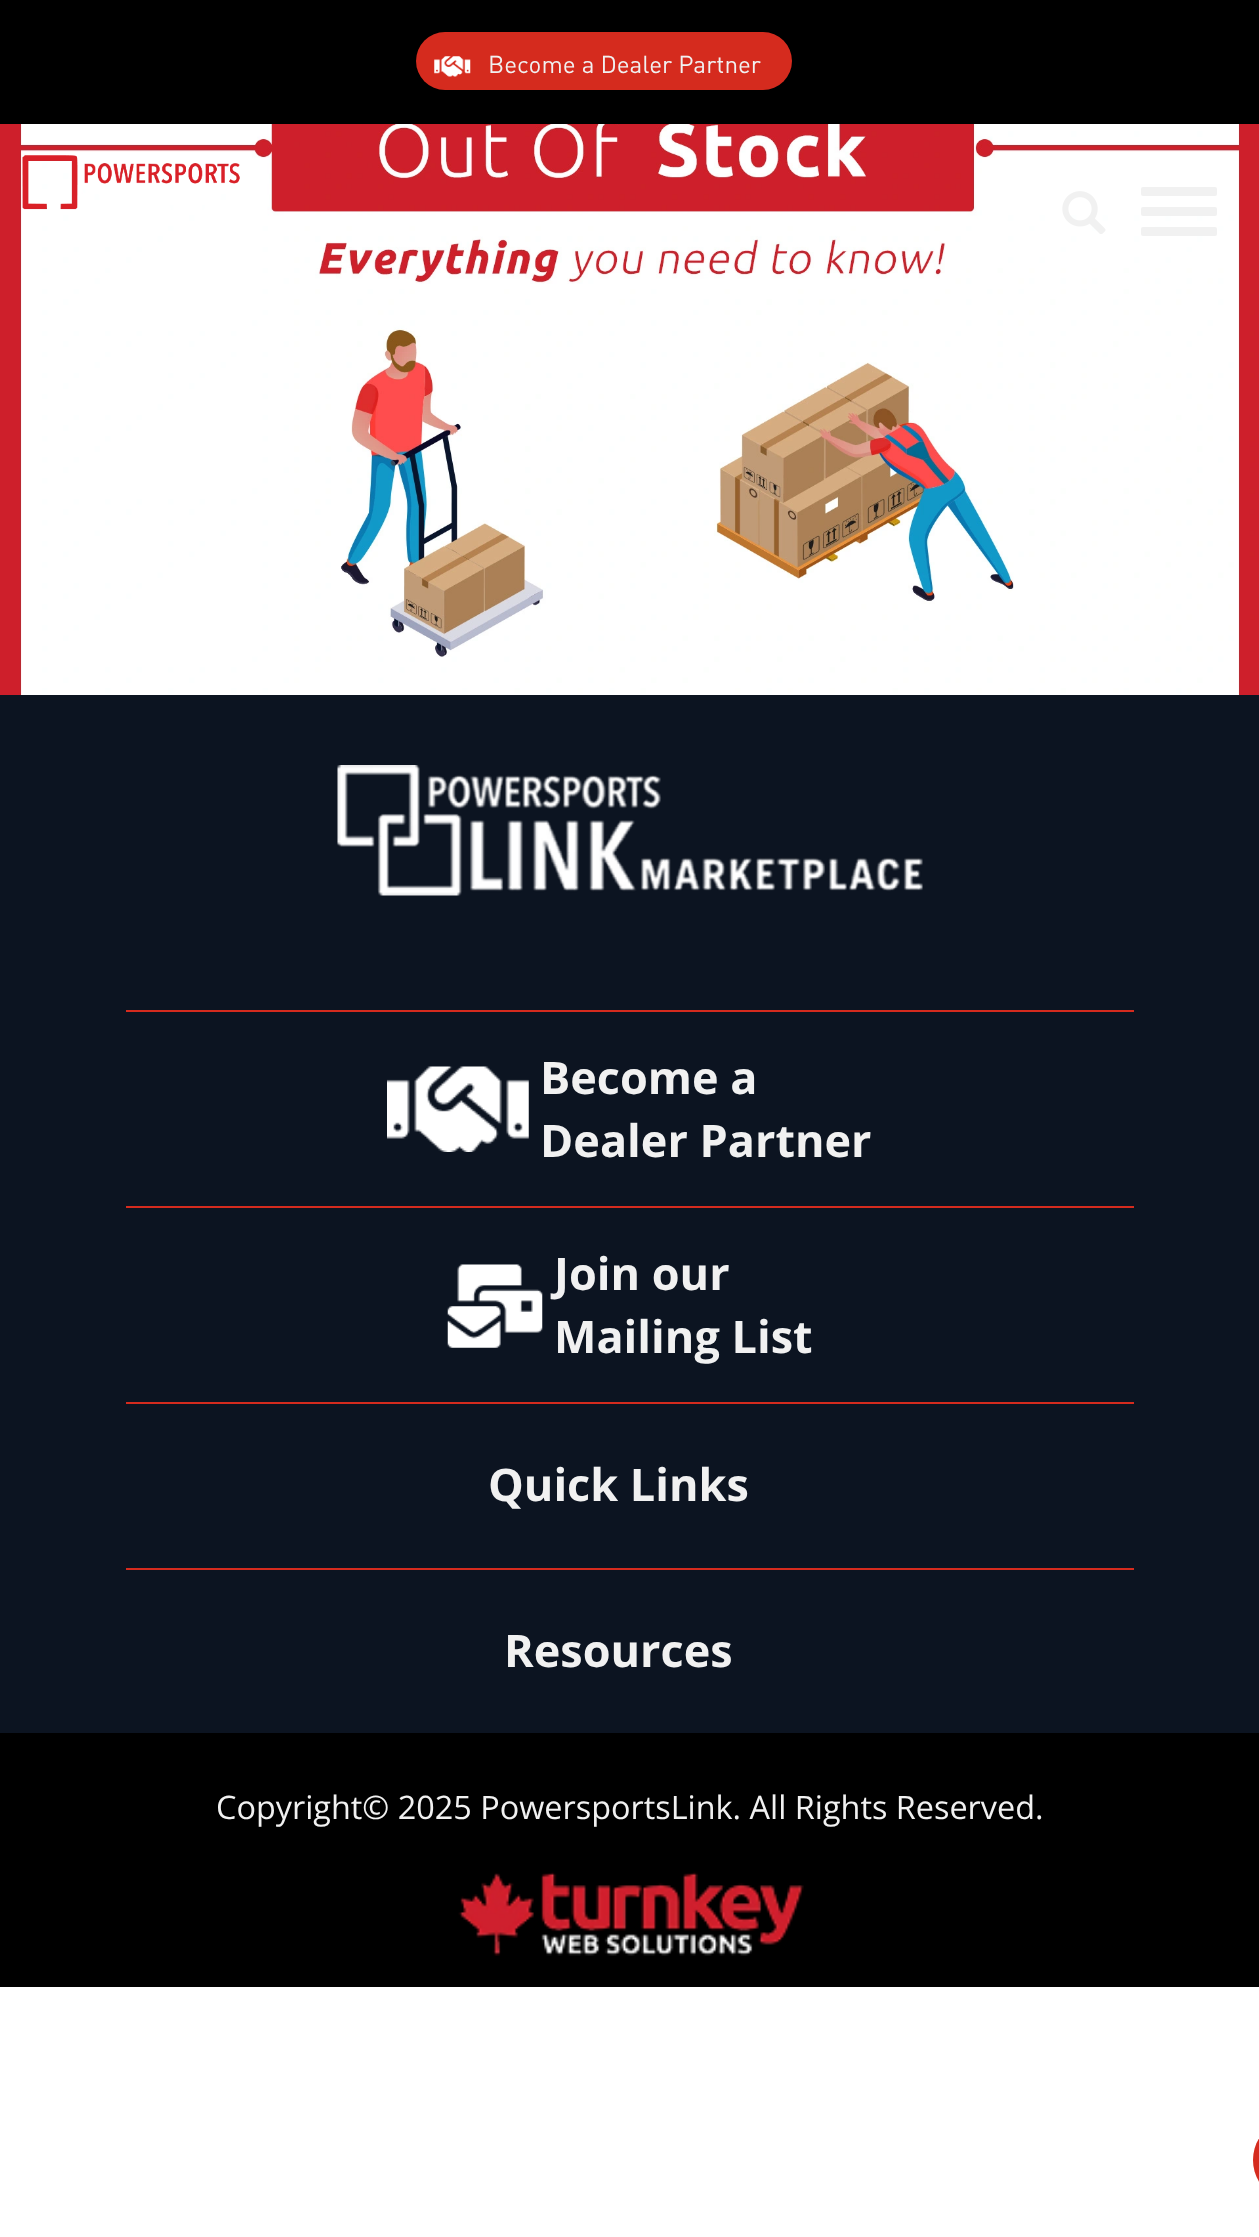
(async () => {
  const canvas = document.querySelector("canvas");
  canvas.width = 1259;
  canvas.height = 2237;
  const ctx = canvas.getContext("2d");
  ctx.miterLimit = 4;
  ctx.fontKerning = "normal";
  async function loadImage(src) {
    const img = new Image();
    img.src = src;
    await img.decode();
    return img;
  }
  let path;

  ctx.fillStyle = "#ffffff";
  ctx.fillRect(0, 0, 1259, 2237);
  ctx.fillStyle = "#000000";
  ctx.fillRect(0, 0, 1259, 124);
  ctx.fillStyle = "#d52b1e";
  ctx.beginPath();
  ctx.roundRect(416, 32, 376, 58, 29);
  ctx.fill();
  ctx.drawImage(await loadImage("img/1.png"), 434, 56, 37, 21);
  ctx.drawImage(await loadImage("img/4.png"), 0, 124, 1259, 571);
  ctx.drawImage(await loadImage("img/2.png"), 22, 155, 218, 55);
  ctx.drawImage(await loadImage("img/3.png"), 1062, 191, 44, 43);
  ctx.fillStyle = "#f1f1f1";
  ctx.beginPath();
  ctx.roundRect(1141, 187, 76, 9, 2);
  ctx.fill();
  ctx.beginPath();
  ctx.roundRect(1141, 207, 76, 9, 2);
  ctx.fill();
  ctx.beginPath();
  ctx.roundRect(1141, 227, 76, 9, 2);
  ctx.fill();
  ctx.fillStyle = "#0c1421";
  ctx.fillRect(0, 695, 1259, 1038);
  ctx.drawImage(await loadImage("img/5.png"), 337, 765, 586, 131);
  ctx.fillStyle = "#d52b1e";
  ctx.fillRect(126, 1010, 1008, 2);
  ctx.fillRect(126, 1206, 1008, 2);
  ctx.drawImage(await loadImage("img/6.png"), 387, 1066, 142, 86);
  ctx.fillRect(126, 1402, 1008, 2);
  ctx.drawImage(await loadImage("img/7.png"), 447, 1264, 96, 84);
  ctx.fillRect(126, 1568, 1008, 2);
  ctx.fillStyle = "#000000";
  ctx.fillRect(0, 1733, 1259, 254);
  ctx.drawImage(await loadImage("img/8.png"), 458, 1871, 346, 85);
  ctx.fillStyle = "#d52b1e";
  path = new Path2D("M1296 2117H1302V2203H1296C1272.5 2203 1253 2183.5 1253 2160C1253 2136.5 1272.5 2117 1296 2117Z");
  ctx.fill(path);
  ctx.font = "24.25px DIN";
  ctx.fillStyle = "#f1f1f1";
  ctx.fillText("Become a Dealer Partner", 488, 73);
  ctx.font = "bold 45px Open Sans";
  for (const [text, x, y] of [
    ["Become a", 540, 1094],
    ["Dealer Partner", 540, 1157],
    ["Join our", 554, 1290],
    ["Mailing List", 554, 1353],
    ["Quick Links", 488, 1501],
    ["Resources", 504, 1667],
  ]) {
    ctx.fillText(text, x, y);
  }
  ctx.font = "32.4px Open Sans";
  ctx.fillText("Copyright© 2025 PowersportsLink. All Rights Reserved.", 216, 1819);
})();
